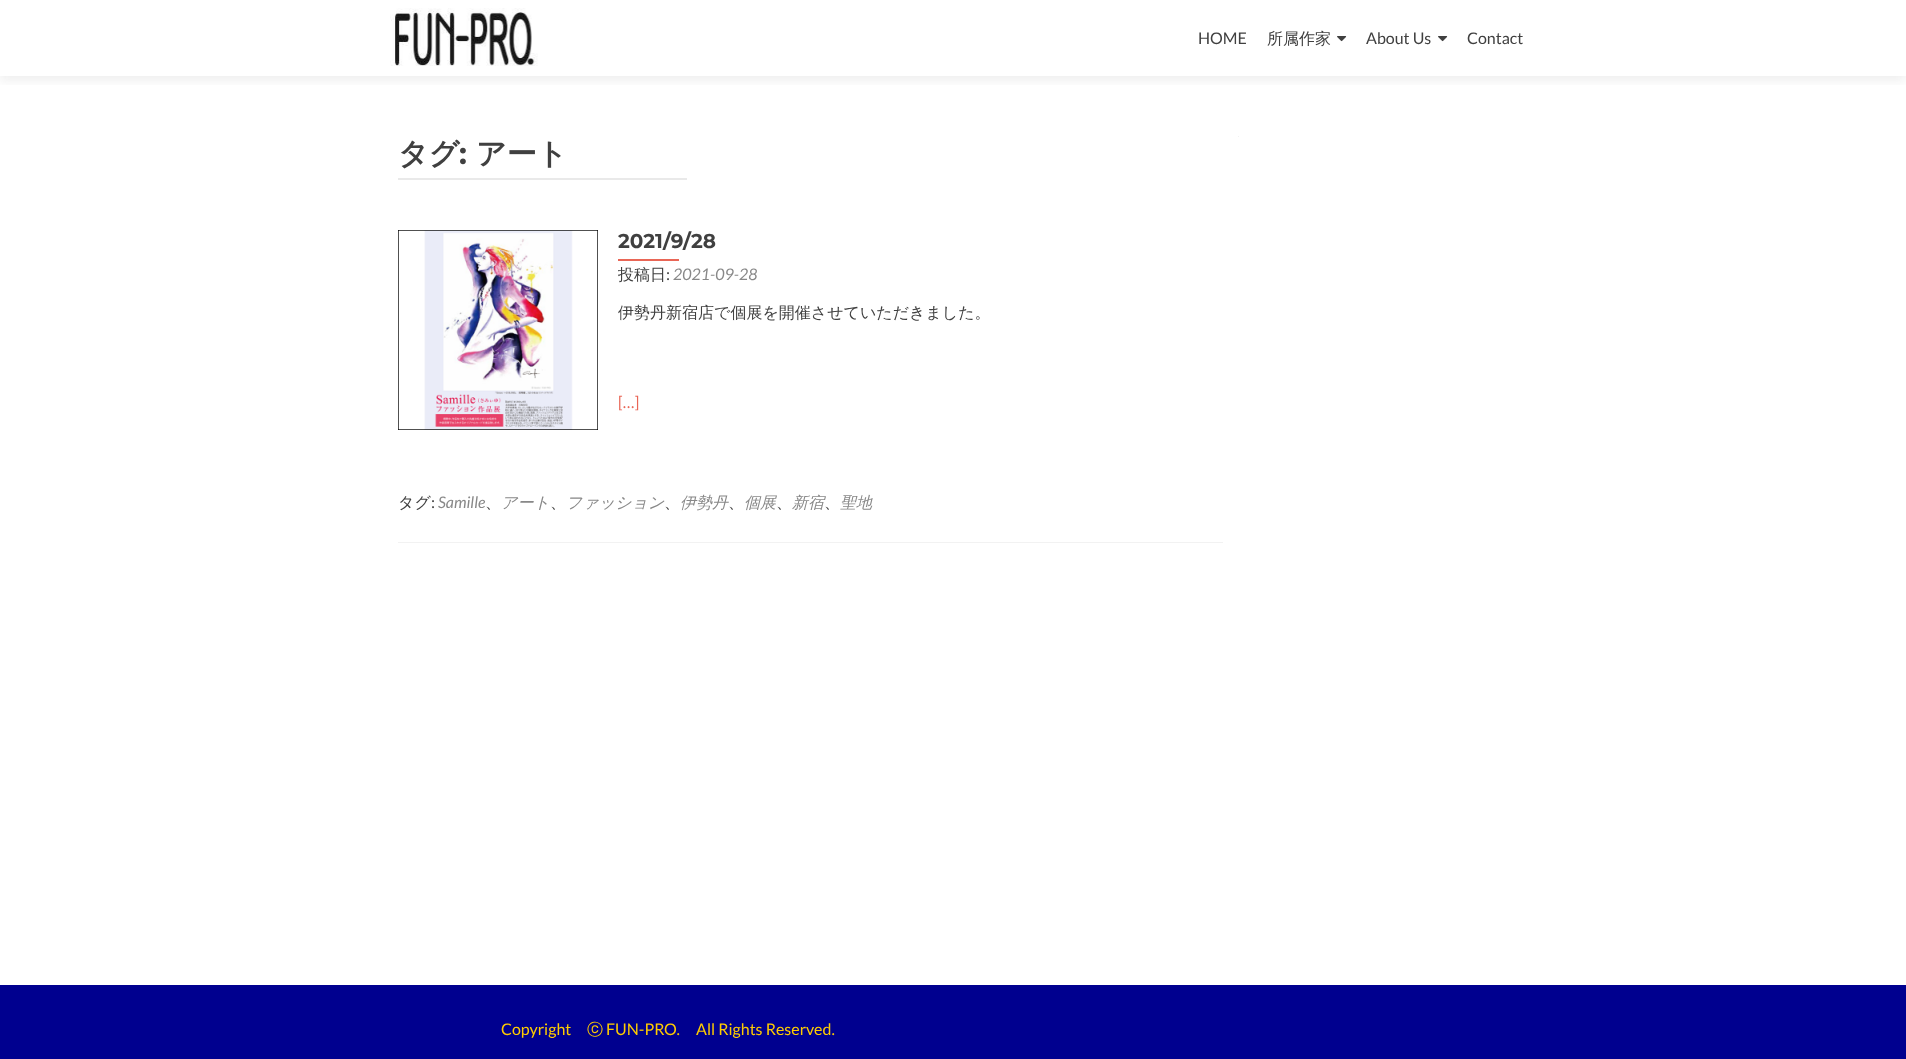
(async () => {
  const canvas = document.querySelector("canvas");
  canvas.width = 1906;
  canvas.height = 1059;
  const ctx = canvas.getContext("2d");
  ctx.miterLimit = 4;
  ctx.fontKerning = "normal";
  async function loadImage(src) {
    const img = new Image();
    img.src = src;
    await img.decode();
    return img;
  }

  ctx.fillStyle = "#ffffff";
  ctx.fillRect(0, 0, 1906, 1059);
  ctx.save();
  ctx.beginPath();
  ctx.rect(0, 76, 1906, 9);
  ctx.clip();
  ctx.fillStyle = "rgba(50, 50, 50, 0.08)";
  ctx.filter = "blur(5.5px)";
  ctx.beginPath();
  ctx.rect(0, 5, 1906, 76);
  ctx.fill();
  ctx.filter = "none";
  ctx.restore();
  ctx.drawImage(await loadImage("img/1.png"), 390, 8, 148, 58);
  ctx.drawImage(await loadImage("img/2.png"), 1337, 36, 10, 6);
  ctx.drawImage(await loadImage("img/2.png"), 1438, 36, 10, 6);
  for (const [x, y, w, h, color] of [
    [1238, 136, 1, 1, "#f2f2f2"],
    [398, 178, 289, 2, "#e9e9e9"],
    [398, 542, 825, 1, "#f2f2f2"],
  ]) {
    ctx.fillStyle = color;
    ctx.fillRect(x, y, w, h);
  }
  ctx.drawImage(await loadImage("img/3.png"), 398, 230, 200, 200);
  ctx.fillStyle = "#e96656";
  ctx.fillRect(618, 259, 61, 2);
  ctx.fillStyle = "#00008f";
  ctx.fillRect(0, 985, 1906, 74);
  ctx.font = "16px Lato";
  ctx.fillStyle = "#404040";
  ctx.fillText("HOME", 1198, 44);
  ctx.font = "500 16px WenQuanYi Zen Hei";
  ctx.fillText("所属作家", 1267, 44);
  ctx.font = "16px Lato";
  ctx.fillText("About Us", 1366, 44);
  ctx.fillText("Contact", 1467, 44);
  ctx.font = "bold 30px WenQuanYi Zen Hei";
  ctx.fillText("タグ", 398, 164);
  ctx.font = "bold 30px Montserrat";
  ctx.fillText(":", 459, 164);
  ctx.font = "bold 30px WenQuanYi Zen Hei";
  ctx.fillText("アート", 476, 164);
  ctx.font = "bold 20px Montserrat";
  ctx.fillText("2021/9/28", 618, 248);
  ctx.font = "500 16px WenQuanYi Zen Hei";
  ctx.fillText("投稿日", 618, 280);
  ctx.font = "16px Lato";
  ctx.fillText(":", 666, 280);
  ctx.font = "italic 16px Lato";
  ctx.fillStyle = "#888888";
  ctx.fillText("2021-09-28", 673, 280);
  ctx.font = "500 16px WenQuanYi Zen Hei";
  ctx.fillStyle = "#404040";
  ctx.fillText("伊勢丹新宿店で個展を開催させていただきました。", 618, 318);
  ctx.font = "16px Lato";
  ctx.fillStyle = "#e96656";
  ctx.fillText("[…]", 618, 408);
  ctx.font = "500 16px WenQuanYi Zen Hei";
  ctx.fillStyle = "#404040";
  ctx.fillText("タグ", 398, 508);
  ctx.font = "16px Lato";
  ctx.fillText(":", 431, 508);
  ctx.font = "italic 16px Lato";
  ctx.fillStyle = "#888888";
  ctx.fillText("Samille", 438, 508);
  ctx.font = "500 16px WenQuanYi Zen Hei";
  ctx.fillStyle = "#404040";
  ctx.fillText("、", 485, 508);
  ctx.font = "italic 500 16px WenQuanYi Zen Hei";
  ctx.fillStyle = "#888888";
  ctx.fillText("アート", 501, 508);
  ctx.font = "500 16px WenQuanYi Zen Hei";
  ctx.fillStyle = "#404040";
  ctx.fillText("、", 550, 508);
  ctx.font = "italic 500 16px WenQuanYi Zen Hei";
  ctx.fillStyle = "#888888";
  ctx.fillText("ファッション", 566, 508);
  ctx.font = "500 16px WenQuanYi Zen Hei";
  ctx.fillStyle = "#404040";
  ctx.fillText("、", 664, 508);
  ctx.font = "italic 500 16px WenQuanYi Zen Hei";
  ctx.fillStyle = "#888888";
  ctx.fillText("伊勢丹", 680, 508);
  ctx.font = "500 16px WenQuanYi Zen Hei";
  ctx.fillStyle = "#404040";
  ctx.fillText("、", 728, 508);
  ctx.font = "italic 500 16px WenQuanYi Zen Hei";
  ctx.fillStyle = "#888888";
  ctx.fillText("個展", 744, 508);
  ctx.font = "500 16px WenQuanYi Zen Hei";
  ctx.fillStyle = "#404040";
  ctx.fillText("、", 776, 508);
  ctx.font = "italic 500 16px WenQuanYi Zen Hei";
  ctx.fillStyle = "#888888";
  ctx.fillText("新宿", 792, 508);
  ctx.fillText("聖地", 840, 508);
  ctx.font = "500 16px WenQuanYi Zen Hei";
  ctx.fillStyle = "#404040";
  ctx.fillText("、", 824, 508);
  ctx.font = "16px Lato";
  ctx.fillStyle = "#ffcc00";
  ctx.fillText("Copyright", 501, 1035);
  ctx.font = "500 16px WenQuanYi Zen Hei";
  ctx.fillText("ⓒ", 587, 1035);
  ctx.font = "16px Lato";
  ctx.fillText("FUN-PRO.", 606, 1035);
  ctx.fillText("All Rights Reserved.", 696, 1035);
})();
